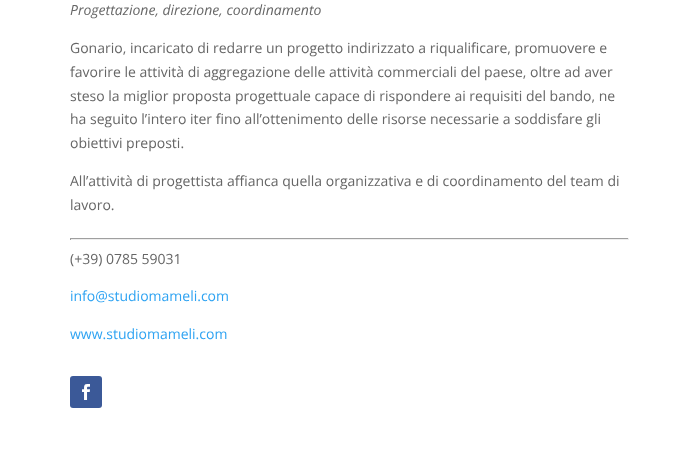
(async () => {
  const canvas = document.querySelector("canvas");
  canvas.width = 699;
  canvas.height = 451;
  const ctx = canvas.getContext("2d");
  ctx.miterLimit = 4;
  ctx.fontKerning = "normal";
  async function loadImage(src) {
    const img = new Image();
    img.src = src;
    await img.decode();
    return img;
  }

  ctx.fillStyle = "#ffffff";
  ctx.fillRect(0, 0, 699, 451);
  for (const [x, y, w, h, color] of [
    [70, 238, 559, 1, "#9f9f9f"],
    [628, 238, 1, 2, "#eeeeee"],
    [70, 239, 559, 1, "#eeeeee"],
    [70, 238, 1, 2, "#9f9f9f"],
  ]) {
    ctx.fillStyle = color;
    ctx.fillRect(x, y, w, h);
  }
  ctx.fillStyle = "#3b5998";
  ctx.beginPath();
  ctx.roundRect(70, 376, 32, 32, 3);
  ctx.fill();
  ctx.drawImage(await loadImage("img/1.png"), 82, 384, 8, 16);
  ctx.font = "italic 14px Open Sans";
  ctx.fillStyle = "#666666";
  ctx.fillText("Progettazione, direzione, coordinamento", 70, 15);
  ctx.font = "14px Open Sans";
  for (const [text, x, y] of [
    ["Gonario, incaricato di redarre un progetto indirizzato a riqualificare, promuovere e", 70, 53],
    ["favorire le attività di aggregazione delle attività commerciali del paese, oltre ad aver", 70, 77],
    ["steso la miglior proposta progettuale capace di rispondere ai requisiti del bando, ne", 70, 101],
    ["ha seguito l’intero iter fino all’ottenimento delle risorse necessarie a soddisfare gli", 70, 124],
    ["obiettivi preposti.", 70, 148],
    ["All’attività di progettista affianca quella organizzativa e di coordinamento del team di", 70, 186],
    ["lavoro.", 70, 210],
    ["(+39) 0785 59031", 70, 264],
  ]) {
    ctx.fillText(text, x, y);
  }
  ctx.fillStyle = "#2ea3f2";
  ctx.fillText("info@studiomameli.com", 70, 301);
  ctx.fillText("www.studiomameli.com", 70, 339);
})();
